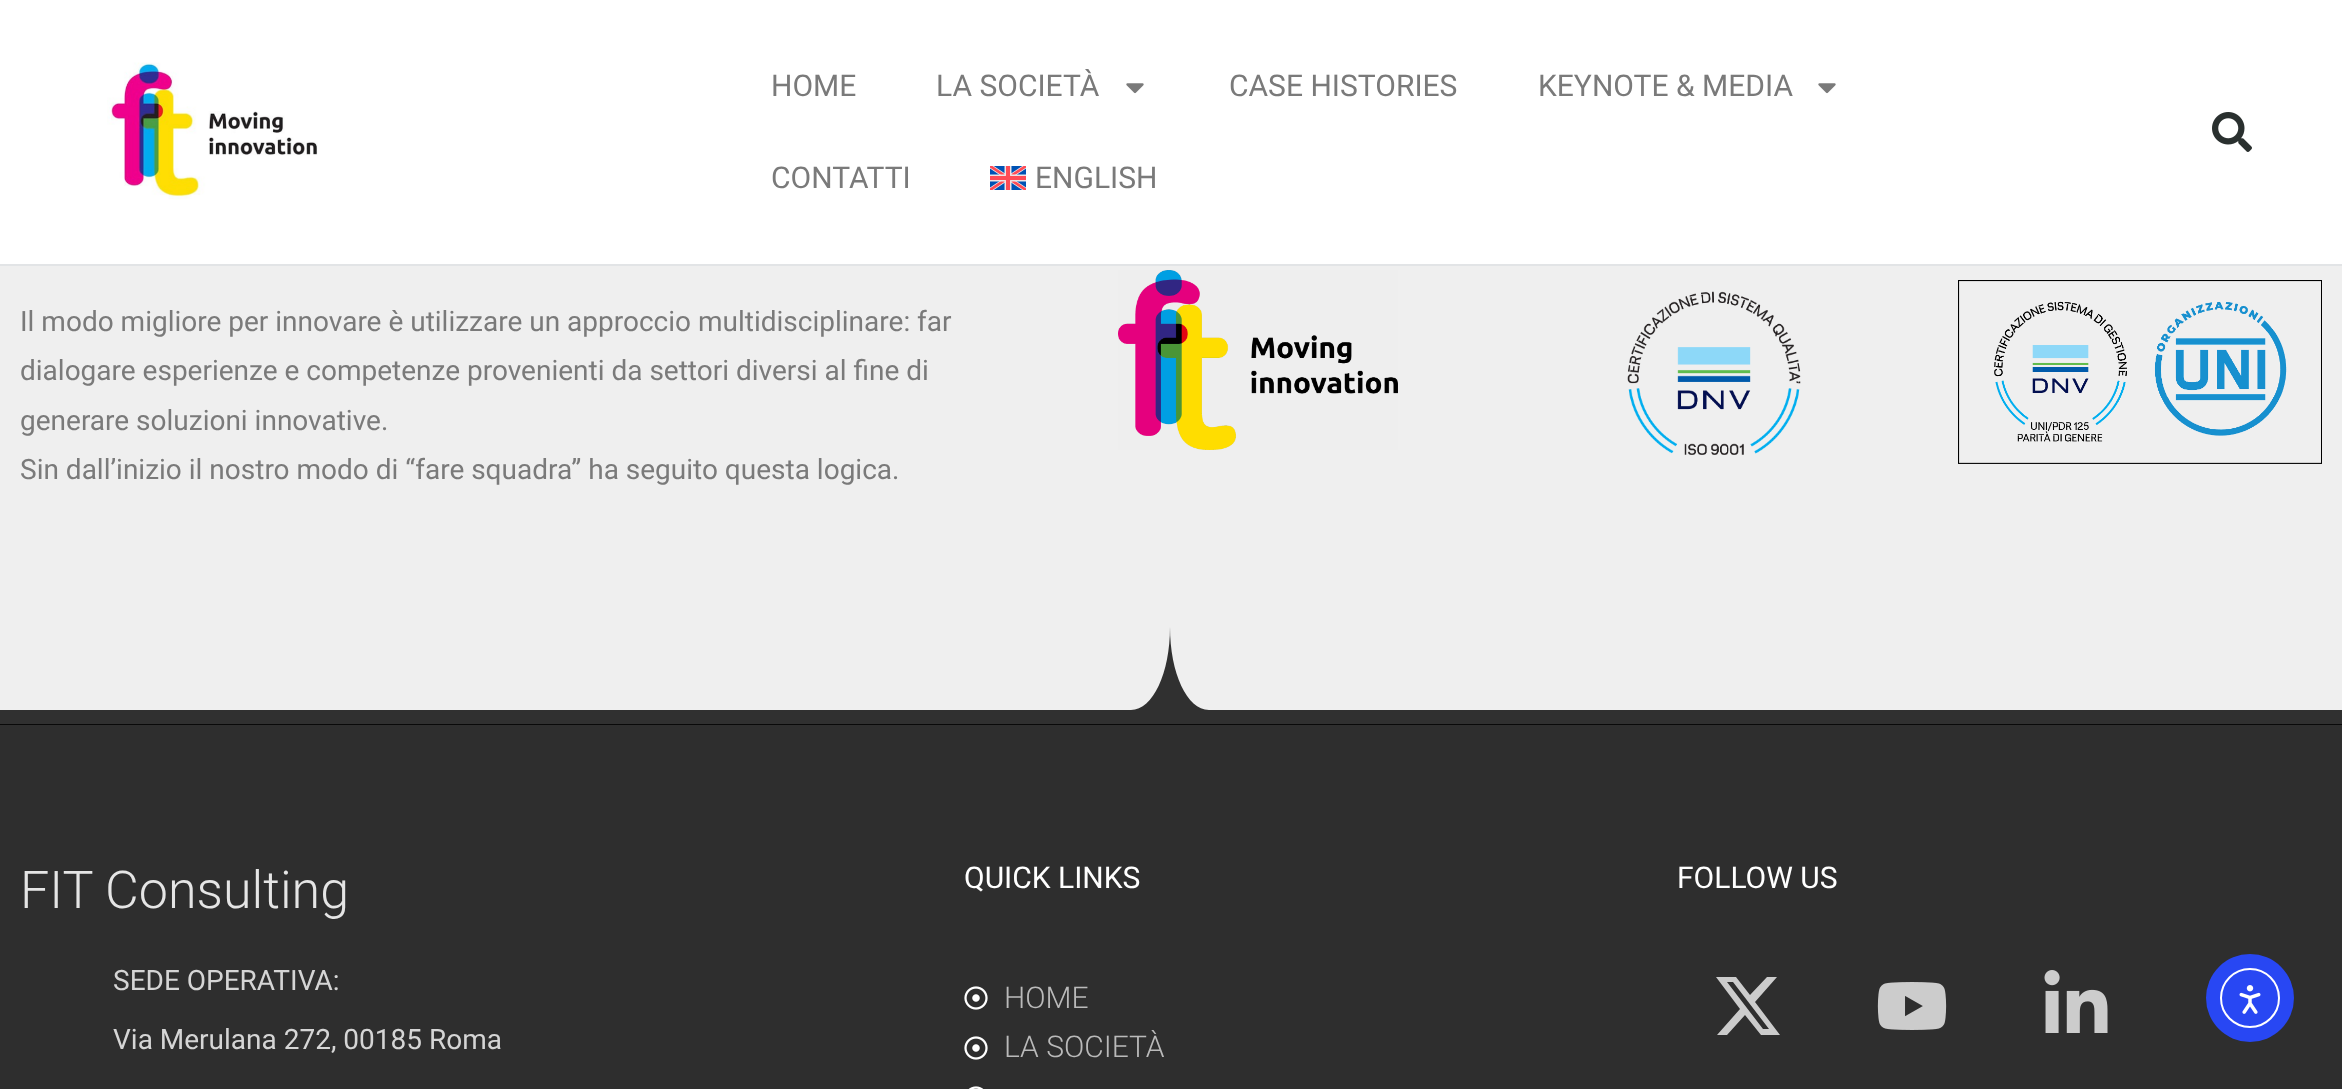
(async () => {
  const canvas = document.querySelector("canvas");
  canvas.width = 2342;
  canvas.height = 1089;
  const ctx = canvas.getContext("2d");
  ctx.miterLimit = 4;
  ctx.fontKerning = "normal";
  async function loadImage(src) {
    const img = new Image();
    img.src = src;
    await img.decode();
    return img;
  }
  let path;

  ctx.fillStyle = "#f5f5f5";
  ctx.fillRect(0, 0, 2342, 1089);
  ctx.fillStyle = "#ffffff";
  ctx.fillRect(0, 0, 2342, 264);
  ctx.fillStyle = "#e2e4e6";
  ctx.fillRect(0, 264, 2342, 2);
  ctx.drawImage(await loadImage("img/1.png"), 107, 62, 211, 138);
  ctx.drawImage(await loadImage("img/2.png"), 1126, 83, 18, 11);
  ctx.drawImage(await loadImage("img/2.png"), 1818, 83, 18, 11);
  ctx.drawImage(await loadImage("img/3.png"), 990, 166, 36, 24);
  ctx.drawImage(await loadImage("img/4.png"), 2212, 112, 40, 40);
  ctx.fillStyle = "#efefef";
  ctx.fillRect(0, 266, 2342, 444);
  ctx.drawImage(await loadImage("img/5.png"), 1118, 270, 280, 180);
  ctx.drawImage(await loadImage("img/6.png"), 1627, 291, 174, 164);
  ctx.drawImage(await loadImage("img/7.png"), 1958, 280, 364, 184);
  ctx.fillStyle = "#303030";
  path = new Path2D("M2342 725V710H1209C1187 710 1170 673 1170 627C1170 673 1153 710 1131 710H-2V725Z");
  ctx.fill(path);
  ctx.fillStyle = "rgba(0, 0, 0, 0.81)";
  ctx.fillRect(0, 724, 2342, 365);
  ctx.drawImage(await loadImage("img/8.png"), 964, 986, 24, 24);
  ctx.drawImage(await loadImage("img/8.png"), 964, 1036, 24, 24);
  ctx.drawImage(await loadImage("img/9.png"), 968, 1086, 16, 3);
  ctx.fillStyle = "#cccccc";
  path = new Path2D("M1767 977H1777L1755 1002L1780 1035H1761L1745 1015L1727 1035H1717L1740 1009L1716 977H1736L1750 995ZM1763 1029H1769L1733 982H1727Z");
  ctx.fill(path);
  ctx.drawImage(await loadImage("img/10.png"), 1877, 982, 70, 48);
  ctx.drawImage(await loadImage("img/11.png"), 2044, 970, 64, 63);
  ctx.fillStyle = "#2847f3";
  ctx.beginPath();
  ctx.arc(2250, 998, 44, 0, Math.PI * 2);
  ctx.fill();
  ctx.beginPath();
  ctx.arc(2250, 998, 29, 0, Math.PI * 2);
  ctx.strokeStyle = "#ffffff";
  ctx.lineWidth = 2;
  ctx.stroke();
  ctx.drawImage(await loadImage("img/12.png"), 2239, 985, 22, 29);
  ctx.font = "30px Roboto";
  ctx.fillStyle = "#7a7a7a";
  for (const [text, x, y] of [
    ["HOME", 771, 96],
    ["LA SOCIETÀ", 936, 96],
    ["CASE HISTORIES", 1229, 96],
    ["KEYNOTE & MEDIA", 1538, 96],
    ["CONTATTI", 771, 188],
    ["ENGLISH", 1035, 188],
  ]) {
    ctx.fillText(text, x, y);
  }
  ctx.font = "28px Roboto";
  for (const [text, x, y] of [
    ["Il modo migliore per innovare è utilizzare un approccio multidisciplinare: far", 20, 331],
    ["dialogare esperienze e competenze provenienti da settori diversi al fine di", 20, 380],
    ["generare soluzioni innovative.", 20, 430],
    ["Sin dall’inizio il nostro modo di “fare squadra” ha seguito questa logica.", 20, 479],
  ]) {
    ctx.fillText(text, x, y);
  }
  ctx.font = "300 52px Roboto";
  ctx.fillStyle = "#e5e5e5";
  ctx.fillText("FIT Consulting", 20, 908);
  ctx.font = "28px Roboto";
  ctx.fillStyle = "#d5d5d5";
  ctx.fillText("SEDE OPERATIVA:", 113, 990);
  ctx.fillText("Via Merulana 272, 00185 Roma", 113, 1049);
  ctx.font = "30px Roboto";
  ctx.fillStyle = "#ffffff";
  ctx.fillText("QUICK LINKS", 964, 888);
  ctx.font = "300 30px Roboto";
  ctx.fillStyle = "#bababa";
  ctx.fillText("HOME", 1004, 1008);
  ctx.fillText("LA SOCIETÀ", 1004, 1057);
  ctx.font = "30px Roboto";
  ctx.fillStyle = "#ffffff";
  ctx.fillText("FOLLOW US", 1677, 888);
})();
